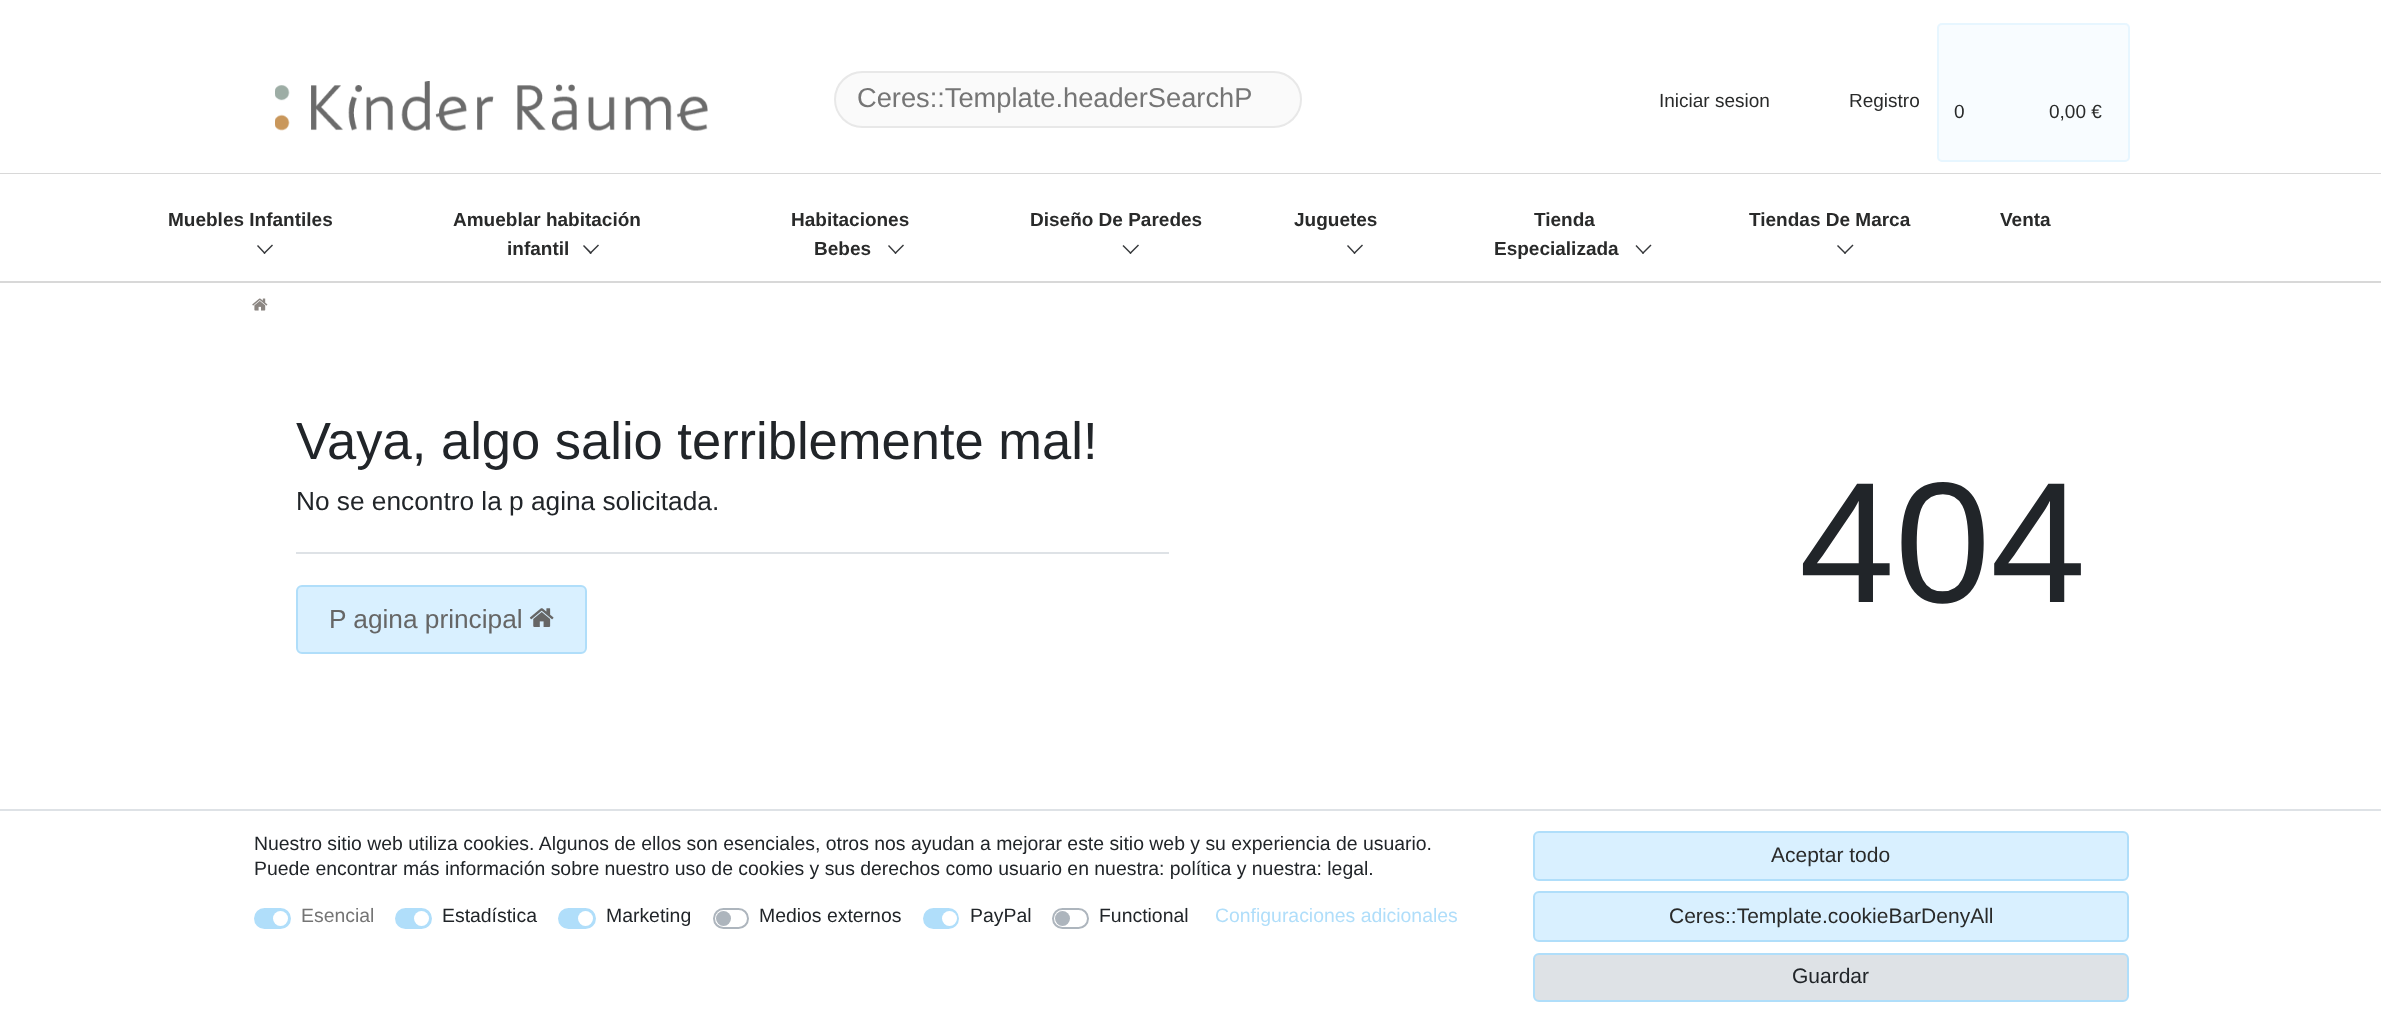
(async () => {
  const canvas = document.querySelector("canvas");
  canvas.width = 2381;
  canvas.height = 1033;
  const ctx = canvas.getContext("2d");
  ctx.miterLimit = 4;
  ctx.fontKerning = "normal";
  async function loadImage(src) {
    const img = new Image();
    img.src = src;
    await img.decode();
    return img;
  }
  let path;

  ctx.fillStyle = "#ffffff";
  ctx.fillRect(0, 0, 2381, 1033);
  ctx.fillStyle = "#d8d8d8";
  ctx.fillRect(0, 173, 2381, 1);
  ctx.fillStyle = "#fafafa";
  ctx.beginPath();
  ctx.roundRect(835, 72, 466, 55, 27.5);
  ctx.fill();
  ctx.strokeStyle = "#e8e8e8";
  ctx.lineWidth = 2;
  ctx.stroke();
  ctx.fillStyle = "#f8fcff";
  ctx.beginPath();
  ctx.roundRect(1937, 23, 193, 139, 5);
  ctx.fill();
  ctx.beginPath();
  ctx.roundRect(1938, 24, 191, 137, 4);
  ctx.strokeStyle = "rgba(217, 240, 255, 0.55)";
  ctx.stroke();
  ctx.fillStyle = "#d8d8d8";
  ctx.fillRect(0, 281, 2381, 2);
  ctx.drawImage(await loadImage("img/1.png"), 275, 81, 433, 50);
  ctx.fillStyle = "#35373a";
  path = new Path2D("M272 244.5L273 245.5L264.5 254L263.5 253Z");
  ctx.fill(path);
  path = new Path2D("M258 245L265.5 253L264.5 254L257 246Z");
  ctx.fill(path);
  path = new Path2D("M598 244.5L599 245.5L590.5 254L589.5 253Z");
  ctx.fill(path);
  path = new Path2D("M584 245L592 253L590.5 254L583 246Z");
  ctx.fill(path);
  path = new Path2D("M903 244.5L904 245.5L895.5 254L894.5 253Z");
  ctx.fill(path);
  path = new Path2D("M889 245L896.5 253L895.5 254L888 246Z");
  ctx.fill(path);
  path = new Path2D("M1138 244.5L1139 245.5L1130.5 254L1129.5 253Z");
  ctx.fill(path);
  path = new Path2D("M1123.5 245L1131.5 253L1130.5 254L1122.5 246Z");
  ctx.fill(path);
  path = new Path2D("M1362 244.5L1363 245.5L1354.5 254L1353.5 253Z");
  ctx.fill(path);
  path = new Path2D("M1348 245L1355.5 253L1354.5 254L1347 246Z");
  ctx.fill(path);
  path = new Path2D("M1650.5 244.5L1651.5 245.5L1643 254L1642 253Z");
  ctx.fill(path);
  path = new Path2D("M1636.5 245L1644 253L1643 254L1635.5 246Z");
  ctx.fill(path);
  path = new Path2D("M1852.5 244.5L1853.5 245.5L1845 254L1844 253Z");
  ctx.fill(path);
  path = new Path2D("M1838 245L1846 253L1845 254L1837 246Z");
  ctx.fill(path);
  ctx.drawImage(await loadImage("img/2.png"), 252, 298, 16, 13);
  ctx.fillStyle = "#dee2e6";
  ctx.fillRect(296, 552, 873, 2);
  ctx.fillStyle = "#d9f0ff";
  ctx.beginPath();
  ctx.roundRect(297, 586, 289, 67, 5);
  ctx.fill();
  ctx.strokeStyle = "#b0defa";
  ctx.stroke();
  ctx.drawImage(await loadImage("img/3.png"), 529, 608, 25, 19);
  ctx.fillStyle = "#dee2e6";
  ctx.fillRect(0, 809, 2381, 2);
  ctx.fillStyle = "#b0defa";
  ctx.beginPath();
  ctx.roundRect(255, 909, 35, 19, 9.5);
  ctx.fill();
  ctx.stroke();
  ctx.fillStyle = "#ffffff";
  ctx.beginPath();
  ctx.arc(280.5, 918.5, 7.5, 0, Math.PI * 2);
  ctx.fill();
  ctx.fillStyle = "#b0defa";
  ctx.beginPath();
  ctx.roundRect(396, 909, 35, 19, 9.5);
  ctx.fill();
  ctx.stroke();
  ctx.fillStyle = "#ffffff";
  ctx.beginPath();
  ctx.arc(421.5, 918.5, 7.5, 0, Math.PI * 2);
  ctx.fill();
  ctx.fillStyle = "#b0defa";
  ctx.beginPath();
  ctx.roundRect(559, 909, 36, 19, 9.5);
  ctx.fill();
  ctx.stroke();
  ctx.fillStyle = "#ffffff";
  ctx.beginPath();
  ctx.arc(585.5, 918.5, 7.5, 0, Math.PI * 2);
  ctx.fill();
  ctx.beginPath();
  ctx.roundRect(714, 909, 34, 19, 9.5);
  ctx.strokeStyle = "#adb5bd";
  ctx.stroke();
  ctx.fillStyle = "#adb5bd";
  ctx.beginPath();
  ctx.arc(723.5, 918.5, 7.5, 0, Math.PI * 2);
  ctx.fill();
  ctx.fillStyle = "#b0defa";
  ctx.beginPath();
  ctx.roundRect(924, 909, 34, 19, 9.5);
  ctx.fill();
  ctx.strokeStyle = "#b0defa";
  ctx.stroke();
  ctx.fillStyle = "#ffffff";
  ctx.beginPath();
  ctx.arc(949.5, 918.5, 7.5, 0, Math.PI * 2);
  ctx.fill();
  ctx.beginPath();
  ctx.roundRect(1053, 909, 35, 19, 9.5);
  ctx.strokeStyle = "#adb5bd";
  ctx.stroke();
  ctx.fillStyle = "#adb5bd";
  ctx.beginPath();
  ctx.arc(1062.5, 918.5, 7.5, 0, Math.PI * 2);
  ctx.fill();
  ctx.fillStyle = "#d9f0ff";
  ctx.beginPath();
  ctx.roundRect(1534, 832, 594, 48, 5);
  ctx.fill();
  ctx.strokeStyle = "#b0defa";
  ctx.stroke();
  ctx.beginPath();
  ctx.roundRect(1534, 892, 594, 49, 5);
  ctx.fill();
  ctx.stroke();
  ctx.fillStyle = "#dee2e6";
  ctx.beginPath();
  ctx.roundRect(1534, 954, 594, 47, 5);
  ctx.fill();
  ctx.stroke();
  ctx.font = "27.25px Liberation Sans";
  ctx.fillStyle = "#757575";
  ctx.fillText("Ceres::Template.headerSearchP", 857, 107);
  ctx.font = "19px Liberation Sans";
  ctx.fillStyle = "#292a2a";
  for (const [text, x, y] of [
    ["Iniciar sesion", 1659, 107],
    ["Registro", 1849, 107],
    ["0", 1954, 118],
    ["0,00 €", 2049, 118],
  ]) {
    ctx.fillText(text, x, y);
  }
  ctx.font = "bold 19px Liberation Sans";
  for (const [text, x, y] of [
    ["Muebles Infantiles", 168, 226],
    ["Amueblar habitación", 453, 226],
    ["infantil", 507, 255],
    ["Habitaciones", 791, 226],
    ["Bebes", 814, 255],
    ["Diseño De Paredes", 1030, 226],
    ["Juguetes", 1294, 226],
    ["Tienda", 1534, 226],
    ["Especializada", 1494, 255],
    ["Tiendas De Marca", 1749, 226],
    ["Venta", 2000, 226],
  ]) {
    ctx.fillText(text, x, y);
  }
  ctx.font = "52.5px Liberation Sans";
  ctx.fillStyle = "#212529";
  ctx.fillText("Vaya, algo salio terriblemente mal!", 296, 459);
  ctx.font = "26.25px Liberation Sans";
  ctx.fillText("No se encontro la p agina solicitada.", 296, 510);
  ctx.fillStyle = "#666666";
  ctx.fillText("P agina principal", 329, 628);
  ctx.font = "172px Liberation Sans";
  ctx.fillStyle = "#212529";
  ctx.fillText("404", 1799, 602);
  ctx.font = "19.42px Liberation Sans";
  ctx.fillText("Nuestro sitio web utiliza cookies. Algunos de ellos son esenciales, otros nos ayudan a mejorar este sitio web y su experiencia de usuario.", 254, 850);
  ctx.fillText("Puede encontrar más información sobre nuestro uso de cookies y sus derechos como usuario en nuestra: política y nuestra: legal.", 254, 875);
  ctx.fillStyle = "#757575";
  ctx.fillText("Esencial", 301, 922);
  ctx.fillStyle = "#212529";
  for (const [text, x, y] of [
    ["Estadística", 442, 922],
    ["Marketing", 606, 922],
    ["Medios externos", 759, 922],
    ["PayPal", 970, 922],
    ["Functional", 1099, 922],
  ]) {
    ctx.fillText(text, x, y);
  }
  ctx.fillStyle = "#b0defa";
  ctx.fillText("Configuraciones adicionales", 1215, 922);
  ctx.font = "21px Liberation Sans";
  ctx.fillStyle = "#292a2a";
  ctx.fillText("Aceptar todo", 1771, 862);
  ctx.fillText("Ceres::Template.cookieBarDenyAll", 1669, 923);
  ctx.fillStyle = "#212529";
  ctx.fillText("Guardar", 1792, 983);
})();
